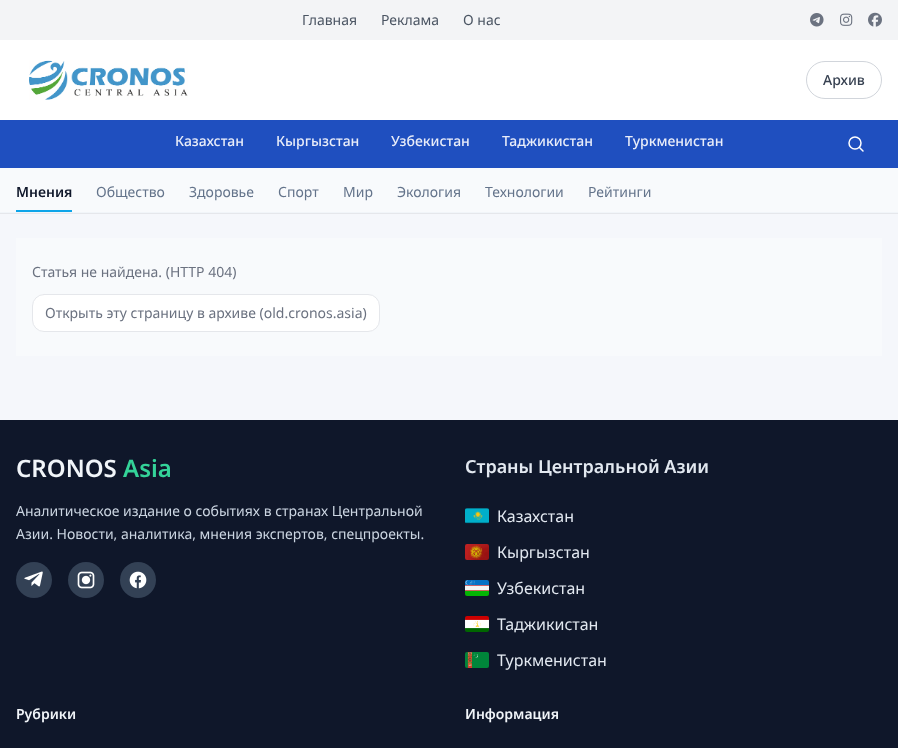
(async () => {
  const canvas = document.querySelector("canvas");
  canvas.width = 898;
  canvas.height = 748;
  const ctx = canvas.getContext("2d");
  ctx.miterLimit = 4;
  ctx.fontKerning = "normal";
  async function loadImage(src) {
    const img = new Image();
    img.src = src;
    await img.decode();
    return img;
  }
  let path;

  ctx.fillStyle = "#f5f7fb";
  ctx.fillRect(0, 0, 898, 748);
  ctx.fillStyle = "#e5e7eb";
  ctx.fillRect(0, 213, 898, 1);
  ctx.fillStyle = "#f3f4f6";
  ctx.fillRect(0, 0, 898, 40);
  ctx.drawImage(await loadImage("img/1.png"), 810, 13, 14, 14);
  ctx.drawImage(await loadImage("img/2.png"), 840, 13, 13, 13);
  ctx.drawImage(await loadImage("img/3.png"), 868, 12, 14, 15);
  ctx.fillStyle = "#ffffff";
  ctx.fillRect(0, 40, 898, 80);
  ctx.drawImage(await loadImage("img/4.png"), 29, 60, 159, 40);
  ctx.beginPath();
  ctx.roundRect(806.5, 61.5, 75, 37, 18.5);
  ctx.strokeStyle = "#d1d5db";
  ctx.stroke();
  ctx.fillStyle = "#1f4fbf";
  ctx.fillRect(0, 120, 898, 48);
  path = new Path2D("M863 151L859.5 147.5");
  ctx.strokeStyle = "#ffffff";
  ctx.lineWidth = 1.5;
  ctx.lineCap = "round";
  ctx.lineJoin = "round";
  ctx.stroke(path);
  ctx.beginPath();
  ctx.arc(855, 143, 6, 0, Math.PI * 2);
  ctx.stroke();
  for (const [x, y, w, h, color] of [
    [0, 168, 898, 44, "#f8fafc"],
    [0, 212, 898, 1, "#f1f5f9"],
    [16, 210, 56, 2, "#0ea5e9"],
    [16, 238, 866, 118, "#f8fafc"],
  ]) {
    ctx.fillStyle = color;
    ctx.fillRect(x, y, w, h);
  }
  ctx.fillStyle = "#ffffff";
  ctx.beginPath();
  ctx.roundRect(32.5, 294.5, 347, 37, 11.5);
  ctx.fill();
  ctx.strokeStyle = "#e5e7eb";
  ctx.lineWidth = 1;
  ctx.lineJoin = "miter";
  ctx.stroke();
  ctx.fillStyle = "#0f172a";
  ctx.fillRect(0, 420, 898, 328);
  ctx.fillStyle = "#334155";
  ctx.beginPath();
  ctx.arc(34, 580, 18, 0, Math.PI * 2);
  ctx.fill();
  ctx.drawImage(await loadImage("img/5.png"), 24, 571, 19, 16);
  ctx.beginPath();
  ctx.arc(86, 580, 18, 0, Math.PI * 2);
  ctx.fill();
  ctx.drawImage(await loadImage("img/6.png"), 77, 571, 18, 18);
  ctx.beginPath();
  ctx.arc(138, 580, 18, 0, Math.PI * 2);
  ctx.fill();
  ctx.drawImage(await loadImage("img/7.png"), 129, 571, 18, 18);
  ctx.drawImage(await loadImage("img/8.png"), 465, 508, 24, 16);
  ctx.drawImage(await loadImage("img/9.png"), 465, 544, 24, 16);
  ctx.drawImage(await loadImage("img/10.png"), 465, 580, 24, 16);
  ctx.drawImage(await loadImage("img/11.png"), 465, 616, 24, 16);
  ctx.drawImage(await loadImage("img/12.png"), 465, 652, 24, 16);
  ctx.font = "14px Noto Sans";
  ctx.fillStyle = "#4b5563";
  for (const [text, x, y] of [
    ["Главная", 302, 25],
    ["Реклама", 381, 25],
    ["О нас", 463, 25],
  ]) {
    ctx.fillText(text, x, y);
  }
  ctx.font = "500 14px Noto Sans";
  ctx.fillStyle = "#374151";
  ctx.fillText("Архив", 823, 85);
  ctx.fillStyle = "#e9edf9";
  for (const [text, x, y] of [
    ["Казахстан", 175, 146],
    ["Кыргызстан", 276, 146],
    ["Узбекистан", 391, 146],
    ["Таджикистан", 502, 146],
    ["Туркменистан", 625, 146],
  ]) {
    ctx.fillText(text, x, y);
  }
  ctx.font = "600 14px Noto Sans";
  ctx.fillStyle = "#0f172a";
  ctx.fillText("Мнения", 16, 197);
  ctx.font = "14px Noto Sans";
  ctx.fillStyle = "#64748b";
  for (const [text, x, y] of [
    ["Общество", 96, 197],
    ["Здоровье", 189, 197],
    ["Спорт", 278, 197],
    ["Мир", 343, 197],
    ["Экология", 397, 197],
    ["Технологии", 485, 197],
    ["Рейтинги", 588, 197],
  ]) {
    ctx.fillText(text, x, y);
  }
  ctx.fillStyle = "#6b7280";
  ctx.fillText("Статья не найдена. (HTTP 404)", 32, 277);
  ctx.fillText("Открыть эту страницу в архиве (old.cronos.asia)", 45, 318);
  ctx.font = "600 24px Noto Sans";
  ctx.fillStyle = "#f1f5f9";
  ctx.fillText("CRONOS", 16, 477);
  ctx.fillStyle = "#34d399";
  ctx.fillText("Asia", 123, 477);
  ctx.font = "14px Noto Sans";
  ctx.fillStyle = "#cbd5e1";
  ctx.fillText("Аналитическое издание о событиях в странах Центральной", 16, 516);
  ctx.fillText("Азии. Новости, аналитика, мнения экспертов, спецпроекты.", 16, 539);
  ctx.font = "600 18px Noto Sans";
  ctx.fillStyle = "#e2e8f0";
  ctx.fillText("Страны Центральной Азии", 465, 473);
  ctx.font = "16px Noto Sans";
  for (const [text, x, y] of [
    ["Казахстан", 497, 522],
    ["Кыргызстан", 497, 558],
    ["Узбекистан", 497, 594],
    ["Таджикистан", 497, 630],
    ["Туркменистан", 497, 666],
  ]) {
    ctx.fillText(text, x, y);
  }
  ctx.font = "600 14px Noto Sans";
  ctx.fillStyle = "#f1f5f9";
  ctx.fillText("Рубрики", 16, 719);
  ctx.fillText("Информация", 465, 719);
})();
